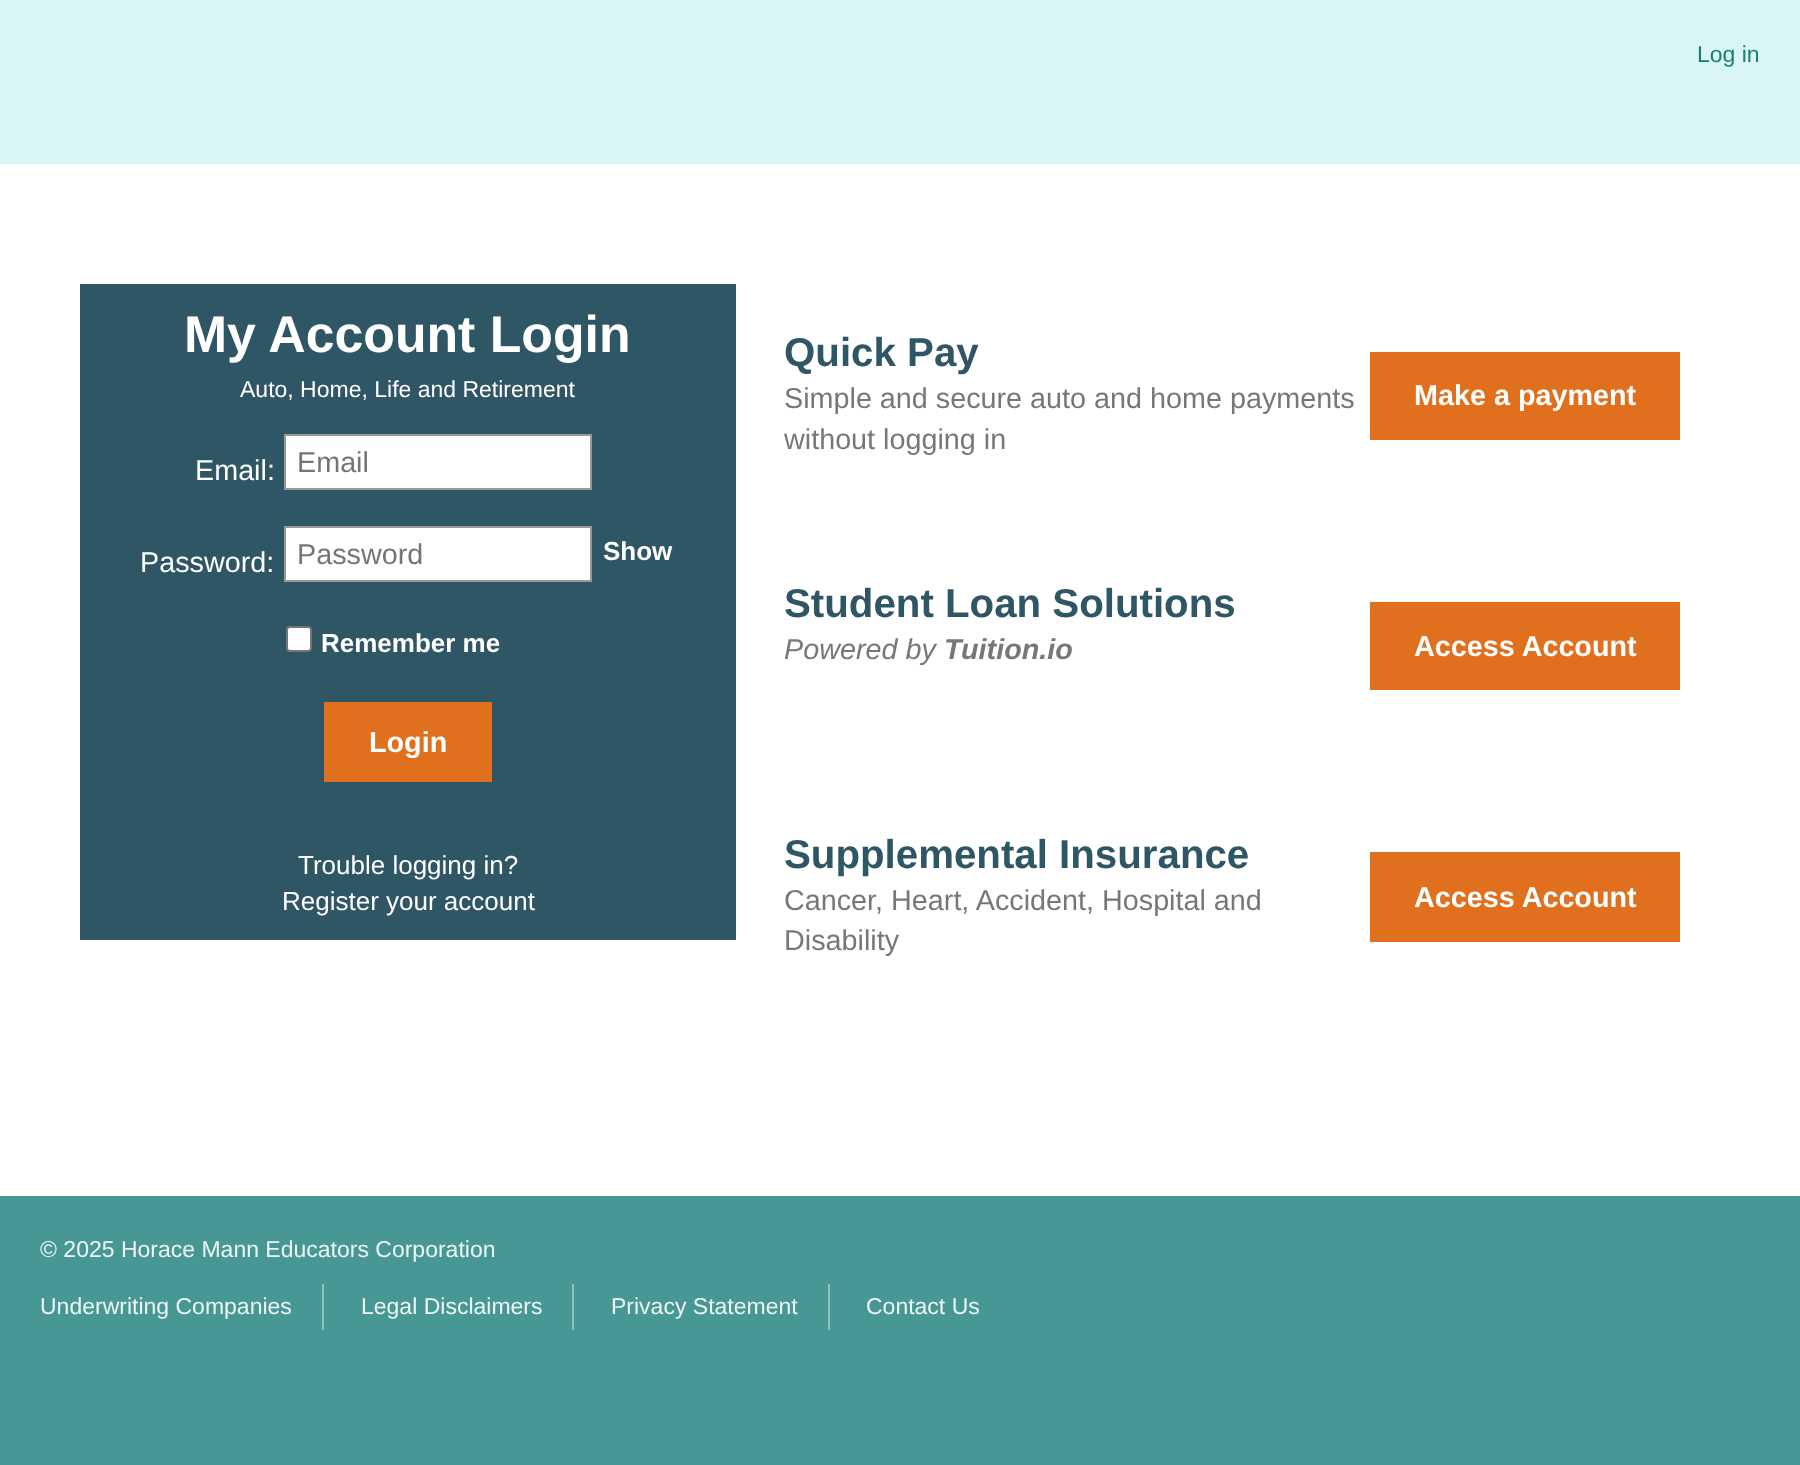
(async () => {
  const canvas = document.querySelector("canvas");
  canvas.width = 1800;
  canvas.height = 1465;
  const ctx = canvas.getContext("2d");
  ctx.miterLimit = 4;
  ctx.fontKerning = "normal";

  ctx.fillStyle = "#479895";
  ctx.fillRect(0, 0, 1800, 1465);
  for (const [x, y, w, h, color] of [
    [0, 0, 1800, 164, "#d9f6f4"],
    [0, 164, 1800, 1032, "#ffffff"],
    [80, 284, 656, 656, "#2e5665"],
  ]) {
    ctx.fillStyle = color;
    ctx.fillRect(x, y, w, h);
  }
  ctx.fillStyle = "#ffffff";
  ctx.beginPath();
  ctx.rect(285, 435, 306, 54);
  ctx.fill();
  ctx.strokeStyle = "#999999";
  ctx.lineWidth = 2;
  ctx.stroke();
  ctx.beginPath();
  ctx.rect(285, 527, 306, 54);
  ctx.fill();
  ctx.stroke();
  ctx.beginPath();
  ctx.roundRect(287, 627, 24, 24, 3);
  ctx.fill();
  ctx.strokeStyle = "#767676";
  ctx.stroke();
  ctx.fillStyle = "#e1701e";
  ctx.beginPath();
  ctx.rect(326, 704, 164, 76);
  ctx.fill();
  ctx.strokeStyle = "#e1701e";
  ctx.lineWidth = 4;
  ctx.stroke();
  ctx.beginPath();
  ctx.rect(1372, 354, 306, 84);
  ctx.fill();
  ctx.stroke();
  ctx.beginPath();
  ctx.rect(1372, 604, 306, 84);
  ctx.fill();
  ctx.stroke();
  ctx.beginPath();
  ctx.rect(1372, 854, 306, 86);
  ctx.fill();
  ctx.stroke();
  for (const [x, y, w, h, color] of [
    [322, 1284, 2, 46, "#91c1bf"],
    [572, 1284, 2, 46, "#91c1bf"],
    [828, 1284, 2, 46, "#91c1bf"],
  ]) {
    ctx.fillStyle = color;
    ctx.fillRect(x, y, w, h);
  }
  ctx.font = "23px Liberation Sans";
  ctx.fillStyle = "#197e7a";
  ctx.fillText("Log in", 1697, 62);
  ctx.font = "bold 51.75px Liberation Sans";
  ctx.fillStyle = "#ffffff";
  ctx.fillText("My Account Login", 184, 352);
  ctx.font = "23px Liberation Sans";
  ctx.fillText("Auto, Home, Life and Retirement", 240, 397);
  ctx.font = "28.75px Liberation Sans";
  ctx.fillText("Email:", 195, 480);
  ctx.fillStyle = "#757575";
  ctx.fillText("Email", 297, 472);
  ctx.fillStyle = "#ffffff";
  ctx.fillText("Password:", 140, 572);
  ctx.fillStyle = "#757575";
  ctx.fillText("Password", 297, 564);
  ctx.font = "bold 26px Liberation Sans";
  ctx.fillStyle = "#ffffff";
  ctx.fillText("Show", 603, 560);
  ctx.fillText("Remember me", 321, 652);
  ctx.font = "bold 28.75px Liberation Sans";
  ctx.fillText("Login", 369, 752);
  ctx.font = "26px Liberation Sans";
  ctx.fillText("Trouble logging in?", 298, 874);
  ctx.fillText("Register your account", 282, 910);
  ctx.font = "bold 40.25px Liberation Sans";
  ctx.fillStyle = "#2e5665";
  ctx.fillText("Quick Pay", 784, 366);
  ctx.font = "28.75px Liberation Sans";
  ctx.fillStyle = "#75787b";
  ctx.fillText("Simple and secure auto and home payments", 784, 408);
  ctx.fillText("without logging in", 784, 449);
  ctx.font = "bold 28.75px Liberation Sans";
  ctx.fillStyle = "#ffffff";
  ctx.fillText("Make a payment", 1414, 405);
  ctx.font = "bold 40.25px Liberation Sans";
  ctx.fillStyle = "#2e5665";
  ctx.fillText("Student Loan Solutions", 784, 617);
  ctx.font = "italic 28.75px Liberation Sans";
  ctx.fillStyle = "#75787b";
  ctx.fillText("Powered by", 784, 659);
  ctx.font = "italic bold 28.75px Liberation Sans";
  ctx.fillText("Tuition.io", 944, 659);
  ctx.font = "bold 28.75px Liberation Sans";
  ctx.fillStyle = "#ffffff";
  ctx.fillText("Access Account", 1414, 656);
  ctx.font = "bold 40.25px Liberation Sans";
  ctx.fillStyle = "#2e5665";
  ctx.fillText("Supplemental Insurance", 784, 868);
  ctx.font = "28.75px Liberation Sans";
  ctx.fillStyle = "#75787b";
  ctx.fillText("Cancer, Heart, Accident, Hospital and", 784, 910);
  ctx.fillText("Disability", 784, 950);
  ctx.font = "bold 28.75px Liberation Sans";
  ctx.fillStyle = "#ffffff";
  ctx.fillText("Access Account", 1414, 907);
  ctx.font = "23px Liberation Sans";
  ctx.fillStyle = "#edf5f5";
  for (const [text, x, y] of [
    ["© 2025 Horace Mann Educators Corporation", 40, 1257],
    ["Underwriting Companies", 40, 1314],
    ["Legal Disclaimers", 361, 1314],
    ["Privacy Statement", 611, 1314],
    ["Contact Us", 866, 1314],
  ]) {
    ctx.fillText(text, x, y);
  }
})();
